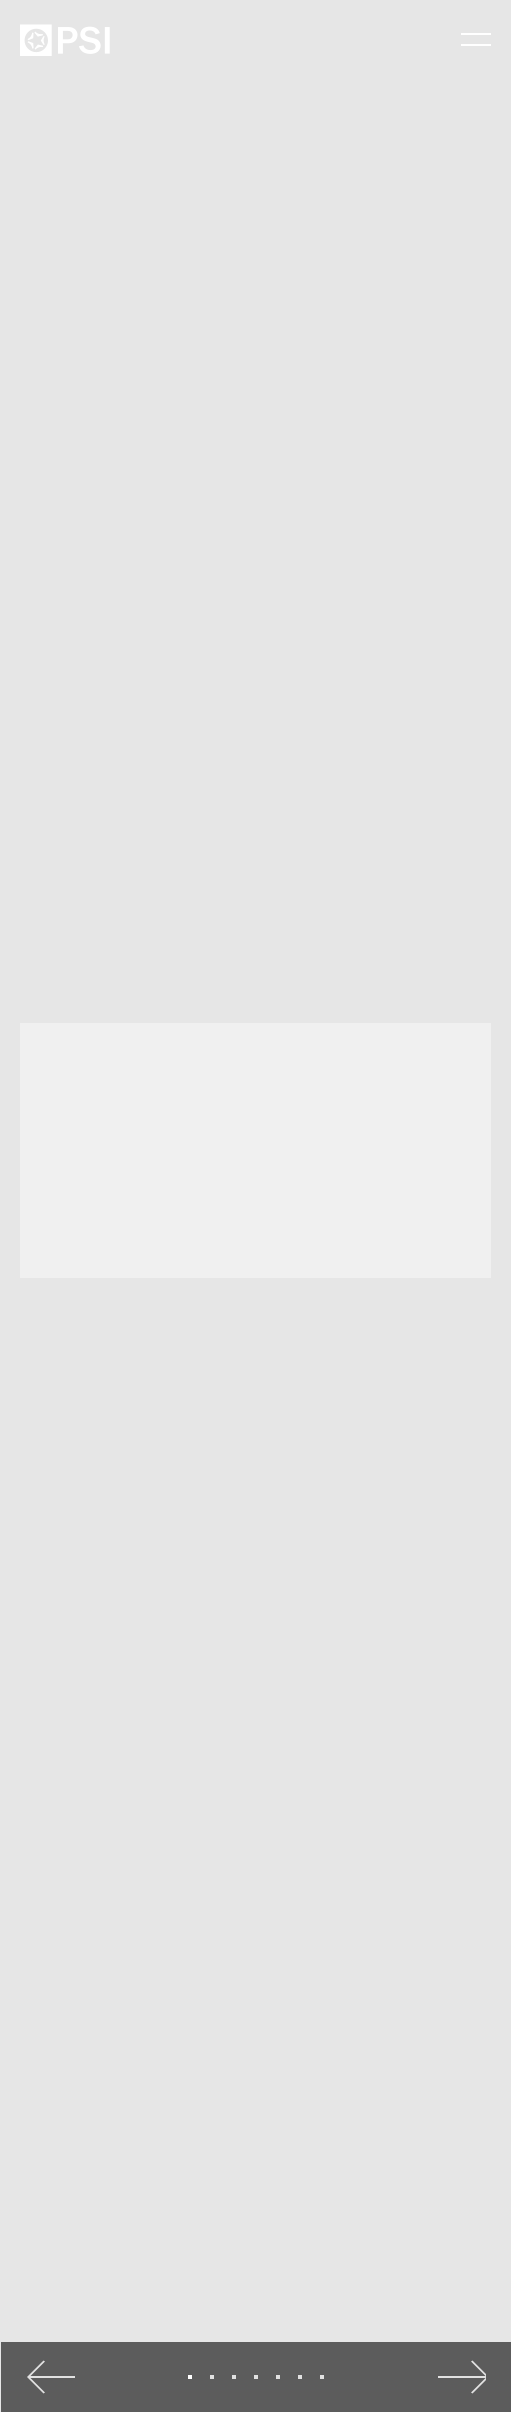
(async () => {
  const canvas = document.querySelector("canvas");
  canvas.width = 511;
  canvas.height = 2412;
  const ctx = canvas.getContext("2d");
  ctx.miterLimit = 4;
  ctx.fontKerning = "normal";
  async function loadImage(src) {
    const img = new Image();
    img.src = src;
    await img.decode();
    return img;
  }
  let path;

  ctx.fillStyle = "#e6e6e6";
  ctx.fillRect(0, 0, 511, 2412);
  ctx.drawImage(await loadImage("img/1.png"), 20, 24, 90, 32);
  for (const [x, y, w, h, color] of [
    [461, 33, 30, 2, "#ffffff"],
    [461, 44, 30, 2, "#ffffff"],
    [20, 1023, 471, 255, "#f0f0f0"],
    [1, 2342, 510, 70, "#5c5c5c"],
    [28, 2376, 47, 2, "#e1e1e1"],
  ]) {
    ctx.fillStyle = color;
    ctx.fillRect(x, y, w, h);
  }
  path = new Path2D("M43.5 2393.5L27 2377L43.5 2360.5L45 2361.5L29.5 2377L45 2392.5Z");
  ctx.fill(path);
  for (const [x, y, w, h, color] of [
    [188, 2375, 4, 4, "#ffffff"],
    [210, 2375, 4, 4, "#e1e1e1"],
    [232, 2375, 4, 4, "#e1e1e1"],
    [254, 2375, 4, 4, "#e1e1e1"],
    [276, 2375, 4, 4, "#e1e1e1"],
    [298, 2375, 4, 4, "#e1e1e1"],
    [320, 2375, 4, 4, "#e1e1e1"],
    [438, 2376, 48, 2, "#e1e1e1"],
  ]) {
    ctx.fillStyle = color;
    ctx.fillRect(x, y, w, h);
  }
  ctx.save();
  ctx.beginPath();
  ctx.rect(438, 2360, 48, 34);
  ctx.clip();
  path = new Path2D("M472.5 2393.5L471 2392.5L486.5 2377L471 2361.5L472.5 2360.5L489 2377Z");
  ctx.fill(path);
  ctx.restore();
})();
